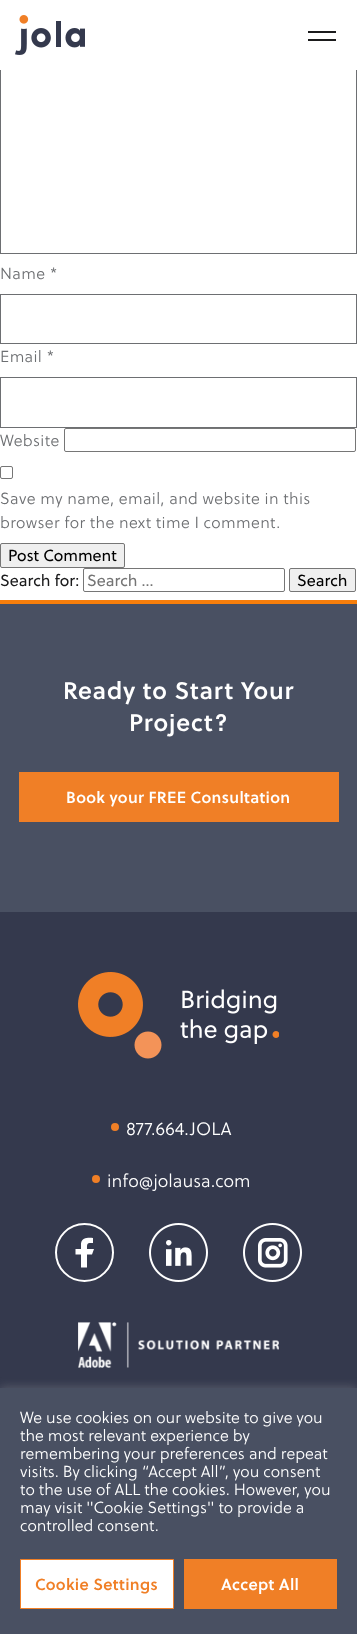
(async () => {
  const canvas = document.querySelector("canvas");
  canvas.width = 357;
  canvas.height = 1634;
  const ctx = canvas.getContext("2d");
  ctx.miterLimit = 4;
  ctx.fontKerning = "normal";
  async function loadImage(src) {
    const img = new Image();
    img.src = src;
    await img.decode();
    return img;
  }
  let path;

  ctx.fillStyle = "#ffffff";
  ctx.fillRect(0, 0, 357, 1634);
  ctx.strokeStyle = "#6d6f72";
  ctx.strokeRect(0.5, 54.5, 356, 199);
  ctx.fillRect(0, 54, 357, 16);
  ctx.drawImage(await loadImage("img/1.png"), 15, 15, 70, 40);
  ctx.fillStyle = "#1b1b1c";
  ctx.fillRect(308, 31, 28, 2);
  ctx.fillRect(308, 39, 28, 2);
  ctx.strokeRect(0.5, 294.5, 356, 49);
  ctx.strokeRect(0.5, 377.5, 356, 50);
  ctx.beginPath();
  ctx.roundRect(64.5, 428.5, 291, 23, 1.5);
  ctx.strokeStyle = "#767676";
  ctx.stroke();
  ctx.beginPath();
  ctx.roundRect(0.5, 466.5, 12, 12, 1.5);
  ctx.stroke();
  ctx.fillStyle = "#efefef";
  ctx.beginPath();
  ctx.roundRect(0.5, 543.5, 124, 24, 1.5);
  ctx.fill();
  ctx.stroke();
  ctx.beginPath();
  ctx.roundRect(83.5, 568.5, 201, 23, 1.5);
  ctx.stroke();
  ctx.beginPath();
  ctx.roundRect(289.5, 568.5, 66, 23, 1.5);
  ctx.fill();
  ctx.stroke();
  for (const [x, y, w, h, color] of [
    [0, 912, 357, 476, "#34394d"],
    [0, 604, 357, 308, "#495062"],
    [0, 600, 357, 4, "#f77e0b"],
    [19, 772, 320, 50, "#f07f26"],
  ]) {
    ctx.fillStyle = color;
    ctx.fillRect(x, y, w, h);
  }
  ctx.drawImage(await loadImage("img/2.png"), 78, 972, 201, 87);
  ctx.beginPath();
  ctx.arc(115, 1127, 4, 0, Math.PI * 2);
  ctx.fill();
  ctx.beginPath();
  ctx.arc(96, 1179, 4, 0, Math.PI * 2);
  ctx.fill();
  ctx.beginPath();
  ctx.arc(84.5, 1252.5, 28.5, 0, Math.PI * 2);
  ctx.strokeStyle = "#ffffff";
  ctx.lineWidth = 2;
  ctx.stroke();
  ctx.fillStyle = "#ffffff";
  path = new Path2D("M81 1267.5V1254.5H75.5V1249H81V1243.5C82 1237.5 88 1237.5 93 1238V1243C87 1243 87 1243 87 1249H94L92 1254.5H87V1267.5Z");
  ctx.fill(path);
  ctx.drawImage(await loadImage("img/3.png"), 149, 1223, 59, 59);
  ctx.drawImage(await loadImage("img/4.png"), 243, 1223, 59, 59);
  ctx.drawImage(await loadImage("img/5.png"), 78, 1322, 201, 46);
  ctx.fillStyle = "rgba(172, 171, 171, 0.3)";
  ctx.filter = "blur(5px)";
  ctx.beginPath();
  ctx.rect(0, 1387, 357, 246);
  ctx.fill();
  ctx.filter = "none";
  ctx.fillStyle = "#495062";
  ctx.fillRect(0, 1388, 357, 246);
  ctx.fillStyle = "#ffffff";
  ctx.beginPath();
  ctx.rect(20.5, 1559.5, 153, 49);
  ctx.fill();
  ctx.strokeStyle = "#f07f26";
  ctx.lineWidth = 1;
  ctx.stroke();
  ctx.fillStyle = "#f07f26";
  ctx.fillRect(184, 1559, 153, 50);
  ctx.letterSpacing = "0.35px";
  ctx.font = "300 16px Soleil";
  ctx.fillStyle = "#6d6f72";
  for (const [text, x, y] of [
    ["Name *", 0, 279],
    ["Email *", 0, 362],
    ["Website", 0, 446],
    ["Save my name, email, and website in this", 0, 504],
    ["browser for the next time I comment.", 0, 528],
  ]) {
    ctx.fillText(text, x, y);
  }
  ctx.letterSpacing = "0px";
  ctx.font = "16px Soleil";
  ctx.fillStyle = "#000000";
  ctx.fillText("Post Comment", 8, 561);
  ctx.fillStyle = "#1b1b1c";
  ctx.fillText("Search for:", 0, 586);
  ctx.fillStyle = "#757575";
  ctx.fillText("Search …", 87, 586);
  ctx.fillStyle = "#000000";
  ctx.fillText("Search", 297, 586);
  ctx.letterSpacing = "0.8px";
  ctx.font = "600 24px Soleil";
  ctx.fillStyle = "#ffffff";
  ctx.fillText("Ready to Start Your", 63, 699);
  ctx.fillText("Project?", 129, 731);
  ctx.letterSpacing = "0.3px";
  ctx.font = "600 16px Soleil";
  ctx.fillText("Book your FREE Consultation", 66, 803);
  ctx.letterSpacing = "0px";
  ctx.font = "300 18px Soleil";
  ctx.fillText("877.664.JOLA", 126, 1135);
  ctx.fillText("info@jolausa.com", 107, 1187);
  ctx.font = "300 16px Soleil";
  for (const [text, x, y] of [
    ["We use cookies on our website to give you", 20, 1423],
    ["the most relevant experience by", 20, 1441],
    ["remembering your preferences and repeat", 20, 1459],
    ["visits. By clicking “Accept All”, you consent", 20, 1477],
    ["to the use of ALL the cookies. However, you", 20, 1495],
    ["may visit \"Cookie Settings\" to provide a", 20, 1513],
    ["controlled consent.", 20, 1531],
  ]) {
    ctx.fillText(text, x, y);
  }
  ctx.letterSpacing = "0.3px";
  ctx.font = "600 16px Soleil";
  ctx.fillStyle = "#f07f26";
  ctx.fillText("Cookie Settings", 35, 1590);
  ctx.fillStyle = "#ffffff";
  ctx.fillText("Accept All", 221, 1590);
})();
